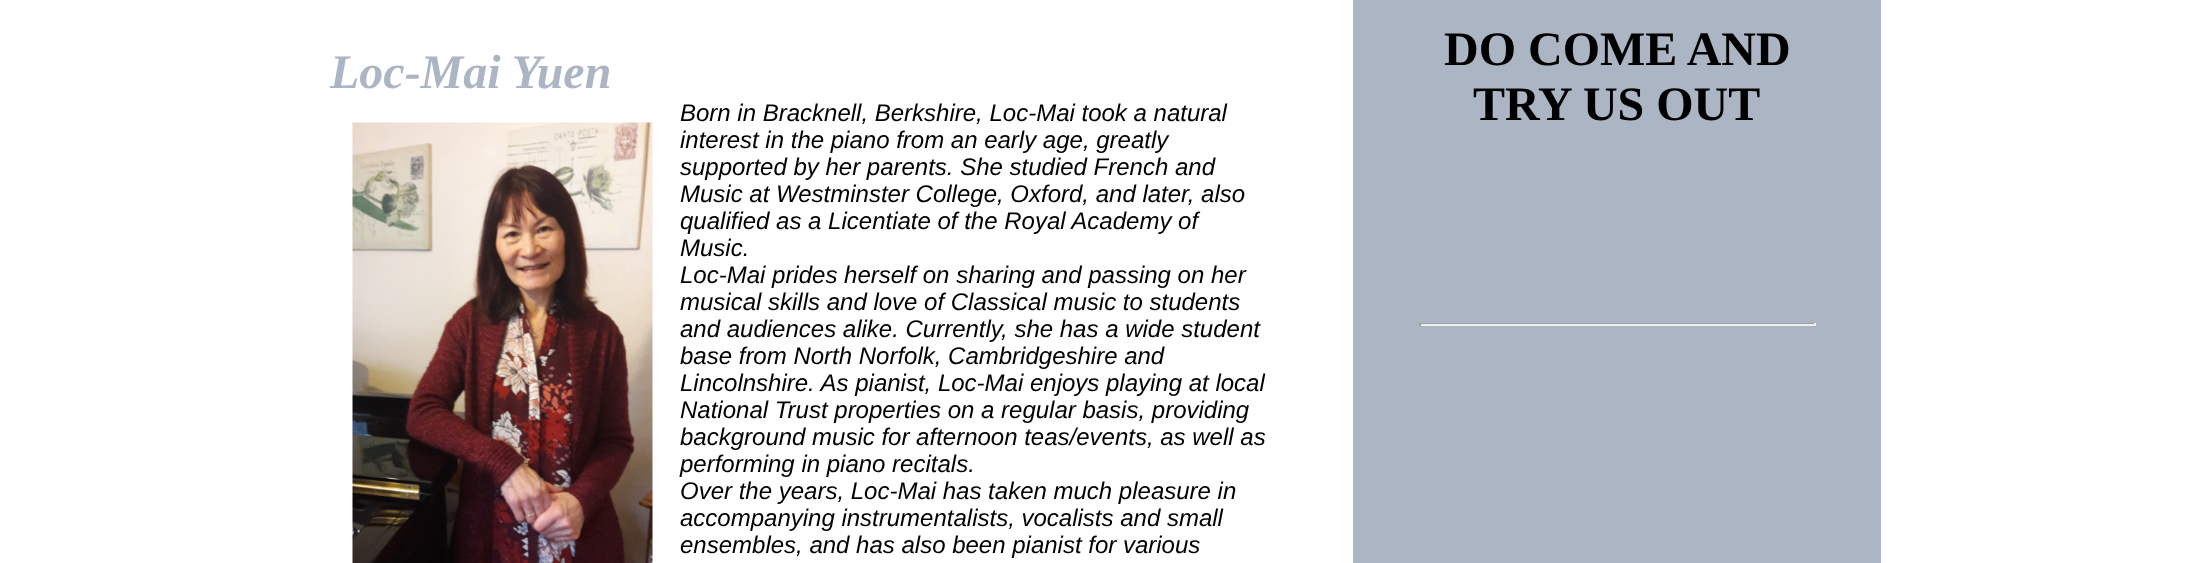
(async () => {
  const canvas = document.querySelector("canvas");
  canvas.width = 2209;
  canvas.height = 563;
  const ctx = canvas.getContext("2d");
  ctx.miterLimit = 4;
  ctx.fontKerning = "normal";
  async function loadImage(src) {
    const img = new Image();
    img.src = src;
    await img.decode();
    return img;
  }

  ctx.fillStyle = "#ffffff";
  ctx.fillRect(0, 0, 2209, 563);
  ctx.drawImage(await loadImage("img/1.png"), 352, 122, 301, 441);
  for (const [x, y, w, h, color] of [
    [1353, 0, 528, 563, "#acb5c4"],
    [1419, 323, 396, 1, "#9f9f9f"],
    [1814, 323, 2, 3, "#eeeeee"],
    [1419, 324, 396, 2, "#eeeeee"],
    [1419, 323, 2, 3, "#9f9f9f"],
  ]) {
    ctx.fillStyle = color;
    ctx.fillRect(x, y, w, h);
  }
  ctx.font = "italic bold 48px Liberation Serif";
  ctx.fillStyle = "#acb5c4";
  ctx.fillText("Loc-Mai Yuen", 330, 88);
  ctx.font = "italic 24px Liberation Sans";
  ctx.fillStyle = "#000000";
  for (const [text, x, y] of [
    ["Born in Bracknell, Berkshire, Loc-Mai took a natural", 680, 121],
    ["interest in the piano from an early age, greatly", 680, 148],
    ["supported by her parents. She studied French and", 680, 175],
    ["Music at Westminster College, Oxford, and later, also", 680, 202],
    ["qualified as a Licentiate of the Royal Academy of", 680, 229],
    ["Music.", 680, 256],
    ["Loc-Mai prides herself on sharing and passing on her", 680, 283],
    ["musical skills and love of Classical music to students", 680, 310],
    ["and audiences alike. Currently, she has a wide student", 680, 337],
    ["base from North Norfolk, Cambridgeshire and", 680, 364],
    ["Lincolnshire. As pianist, Loc-Mai enjoys playing at local", 680, 391],
    ["National Trust properties on a regular basis, providing", 680, 418],
    ["background music for afternoon teas/events, as well as", 680, 445],
    ["performing in piano recitals.", 680, 472],
    ["Over the years, Loc-Mai has taken much pleasure in", 680, 499],
    ["accompanying instrumentalists, vocalists and small", 680, 526],
    ["ensembles, and has also been pianist for various", 680, 553],
  ]) {
    ctx.fillText(text, x, y);
  }
  ctx.font = "bold 48px Liberation Serif";
  ctx.fillText("DO COME AND", 1444, 65);
  ctx.fillText("TRY US OUT", 1473, 120);
})();
